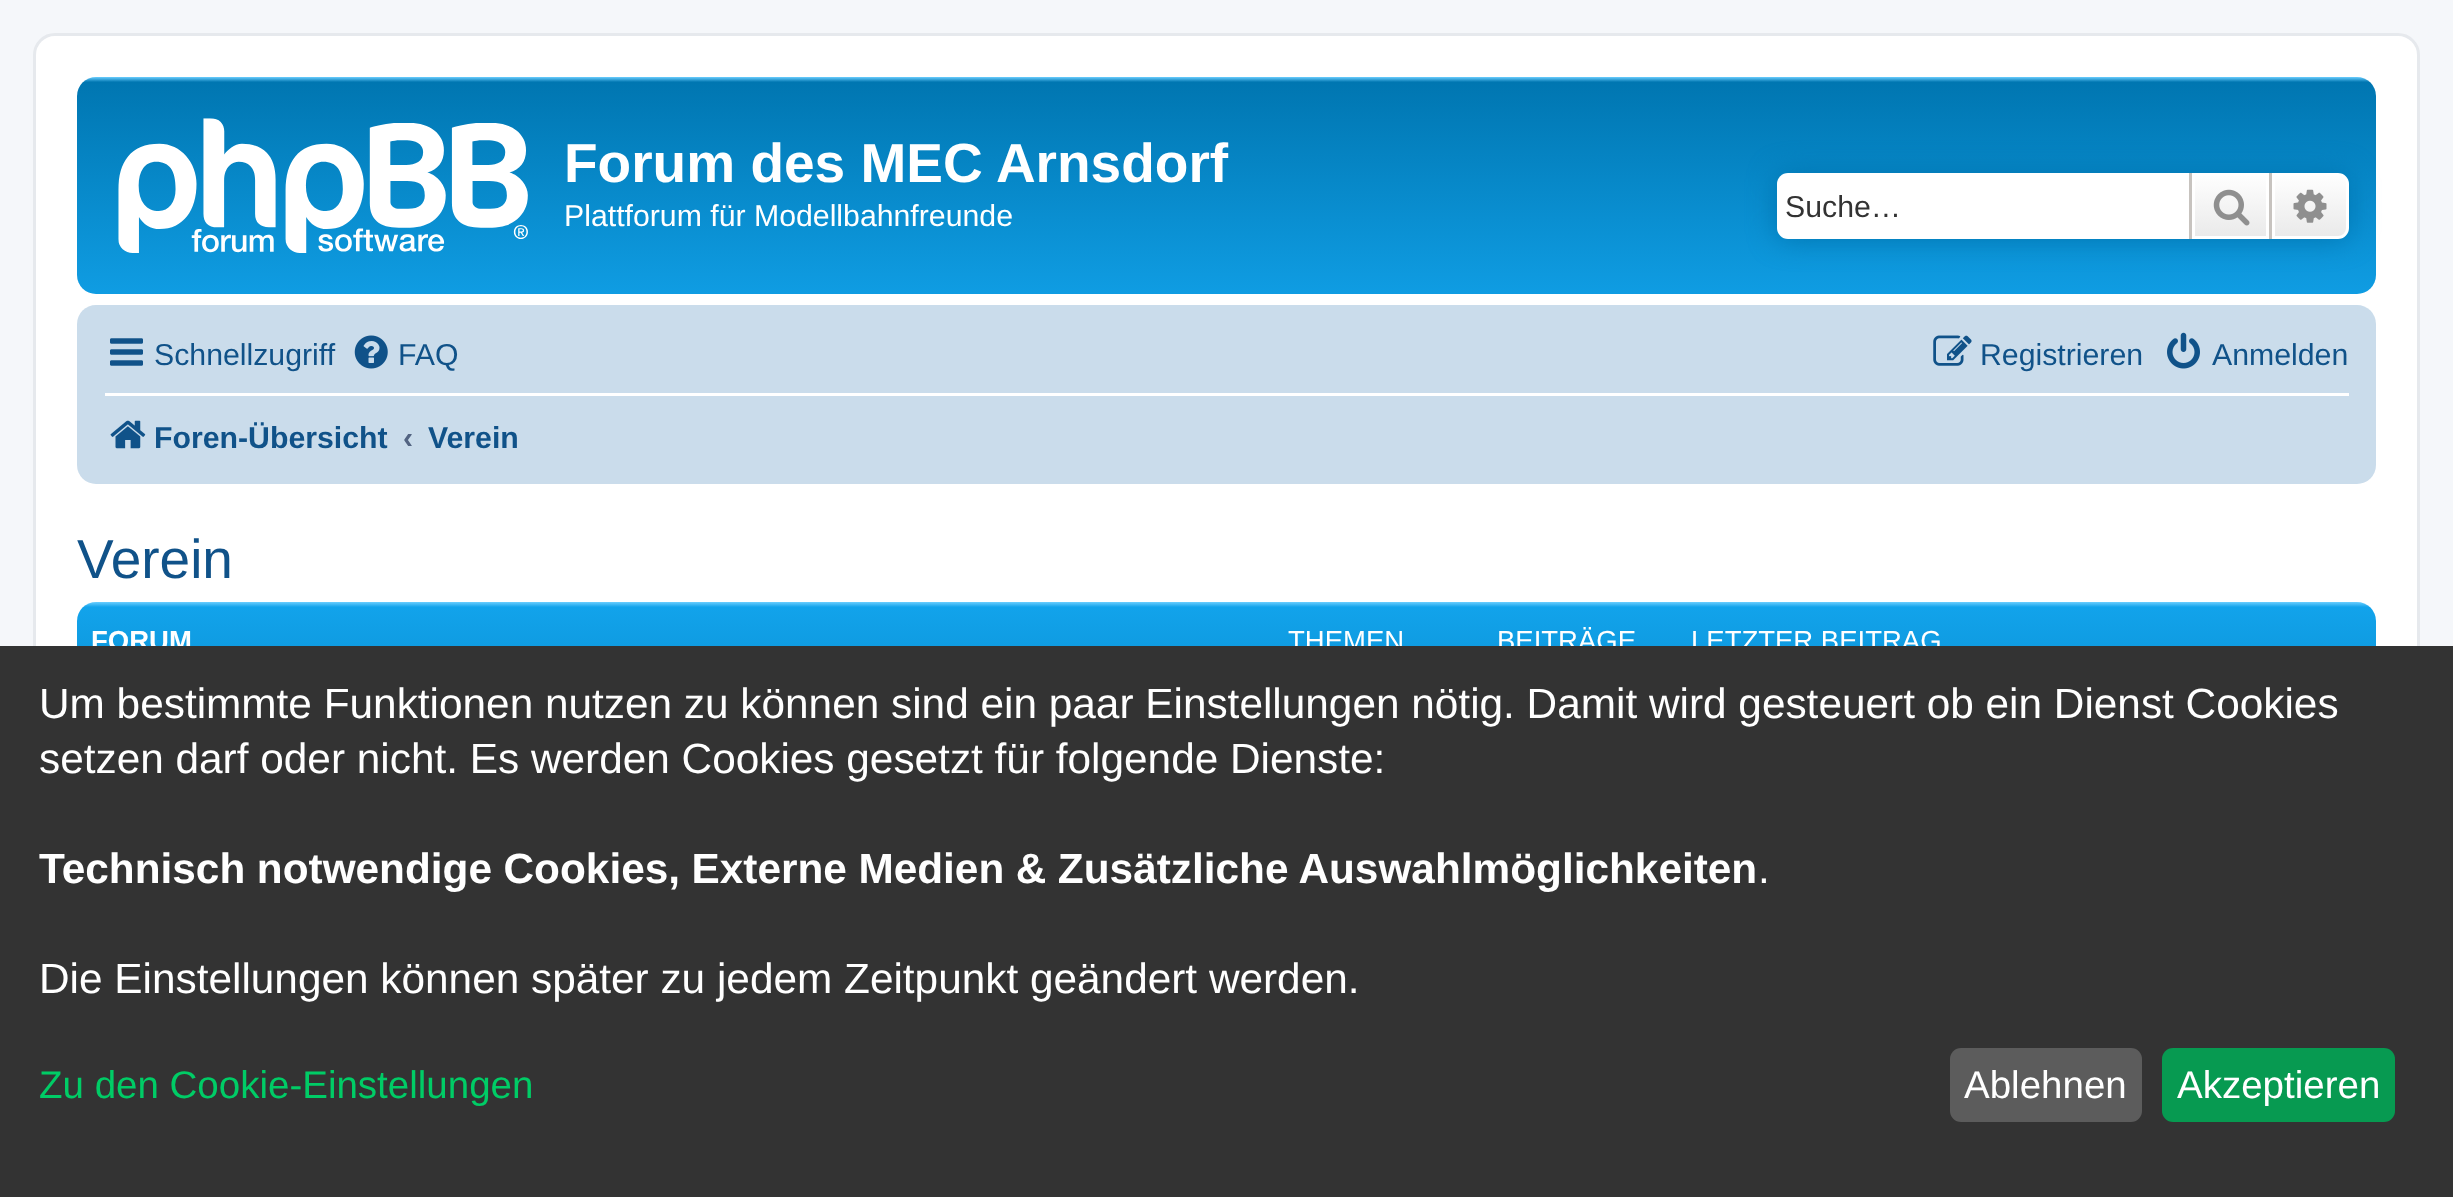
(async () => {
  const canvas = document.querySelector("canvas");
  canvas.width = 2453;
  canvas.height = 1197;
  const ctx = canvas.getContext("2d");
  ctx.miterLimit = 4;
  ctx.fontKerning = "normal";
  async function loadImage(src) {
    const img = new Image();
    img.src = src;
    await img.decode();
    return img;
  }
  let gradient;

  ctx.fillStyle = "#f5f7fa";
  ctx.fillRect(0, 0, 2453, 1197);
  ctx.fillStyle = "#ffffff";
  ctx.beginPath();
  ctx.roundRect(34.5, 34.5, 2384, 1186, 20.5);
  ctx.fill();
  ctx.strokeStyle = "#e6e9ed";
  ctx.lineWidth = 3;
  ctx.stroke();
  gradient = ctx.createLinearGradient(1227, 77, 1227, 330);
  gradient.addColorStop(0, "#6aceff");
  gradient.addColorStop(0.02, "#0076b1");
  gradient.addColorStop(1, "#12a3eb");
  ctx.fillStyle = gradient;
  ctx.beginPath();
  ctx.roundRect(77, 77, 2299, 217, 19);
  ctx.fill();
  ctx.drawImage(await loadImage("img/1.png"), 118, 118, 410, 135);
  ctx.fillStyle = "#0075b0";
  ctx.filter = "blur(14px)";
  ctx.beginPath();
  ctx.roundRect(1777, 173, 572, 66, 11);
  ctx.fill();
  ctx.filter = "none";
  ctx.fillStyle = "#ffffff";
  ctx.beginPath();
  ctx.roundRect(1777, 173, 412, 66, [11, 0, 0, 11]);
  ctx.fill();
  gradient = ctx.createLinearGradient(2230, 173, 2230, 239);
  gradient.addColorStop(0, "#ffffff");
  gradient.addColorStop(1, "#e9e9e9");
  ctx.fillStyle = gradient;
  ctx.fillRect(2195, 176, 71, 60);
  ctx.strokeStyle = "#ffffff";
  ctx.strokeRect(2193.5, 174.5, 74, 63);
  ctx.fillStyle = "#c7c3bf";
  ctx.fillRect(2269, 173, 3, 66);
  ctx.fillRect(2189, 173, 3, 66);
  ctx.drawImage(await loadImage("img/2.png"), 2213, 189, 37, 37);
  gradient = ctx.createLinearGradient(2310, 173, 2310, 239);
  gradient.addColorStop(0, "#ffffff");
  gradient.addColorStop(1, "#e9e9e9");
  ctx.fillStyle = gradient;
  ctx.beginPath();
  ctx.roundRect(2273.5, 174.5, 74, 63, [0, 9.5, 9.5, 0]);
  ctx.fill();
  ctx.stroke();
  ctx.drawImage(await loadImage("img/3.png"), 2293, 189, 34, 34);
  ctx.fillStyle = "#cadceb";
  ctx.beginPath();
  ctx.roundRect(77, 305, 2299, 179, 19);
  ctx.fill();
  ctx.drawImage(await loadImage("img/4.png"), 110, 338, 33, 28);
  ctx.drawImage(await loadImage("img/5.png"), 354, 335, 34, 34);
  ctx.drawImage(await loadImage("img/6.png"), 1933, 335, 39, 31);
  ctx.drawImage(await loadImage("img/7.png"), 2167, 332, 33, 37);
  ctx.fillStyle = "#ffffff";
  ctx.fillRect(105, 393, 2244, 3);
  ctx.drawImage(await loadImage("img/8.png"), 110, 420, 36, 29);
  gradient = ctx.createLinearGradient(1227, 602, 1227, 855);
  gradient.addColorStop(0, "#6aceff");
  gradient.addColorStop(0.02, "#12a3eb");
  gradient.addColorStop(1, "#0076b1");
  ctx.fillStyle = gradient;
  ctx.beginPath();
  ctx.roundRect(77, 602, 2299, 220, 19);
  ctx.fill();
  ctx.font = "bold 55px Liberation Sans";
  ctx.fillStyle = "#ffffff";
  ctx.fillText("Forum des MEC Arnsdorf", 564, 182);
  ctx.font = "30.25px Liberation Sans";
  ctx.fillText("Plattforum für Modellbahnfreunde", 564, 226);
  ctx.fillStyle = "#333333";
  ctx.fillText("Suche…", 1785, 217);
  ctx.fillStyle = "#105289";
  for (const [text, x, y] of [
    ["Schnellzugriff", 154, 365],
    ["FAQ", 398, 365],
    ["Registrieren", 1980, 365],
    ["Anmelden", 2212, 365],
  ]) {
    ctx.fillText(text, x, y);
  }
  ctx.font = "bold 30.25px Liberation Sans";
  ctx.fillText("Foren-Übersicht", 154, 448);
  ctx.fillStyle = "#536482";
  ctx.fillText("‹", 403, 448);
  ctx.fillStyle = "#105289";
  ctx.fillText("Verein", 428, 448);
  ctx.font = "55px Liberation Sans";
  ctx.fillText("Verein", 77, 578);
  ctx.font = "bold 27.5px Liberation Sans";
  ctx.fillStyle = "#ffffff";
  ctx.fillText("FORUM", 91, 650);
  ctx.font = "27.5px Liberation Sans";
  for (const [text, x, y] of [
    ["THEMEN", 1288, 650],
    ["BEITRÄGE", 1497, 650],
    ["LETZTER BEITRAG", 1691, 650],
  ]) {
    ctx.fillText(text, x, y);
  }
  ctx.fillStyle = "#333333";
  ctx.fillRect(0, 646, 2453, 551);
  ctx.font = "42.35px Liberation Sans";
  ctx.fillStyle = "#ffffff";
  ctx.fillText("Um bestimmte Funktionen nutzen zu können sind ein paar Einstellungen nötig. Damit wird gesteuert ob ein Dienst Cookies", 39, 718);
  ctx.fillText("setzen darf oder nicht. Es werden Cookies gesetzt für folgende Dienste:", 39, 773);
  ctx.wordSpacing = "-0.25px";
  ctx.font = "bold 42.35px Liberation Sans";
  ctx.fillText("Technisch notwendige Cookies, Externe Medien & Zusätzliche Auswahlmöglichkeiten", 39, 883);
  ctx.wordSpacing = "0px";
  ctx.font = "42.35px Liberation Sans";
  ctx.fillText(".", 1758, 883);
  ctx.fillText("Die Einstellungen können später zu jedem Zeitpunkt geändert werden.", 39, 993);
  ctx.font = "38.5px Liberation Sans";
  ctx.fillStyle = "#00cc66";
  ctx.fillText("Zu den Cookie-Einstellungen", 39, 1098);
  ctx.fillStyle = "#5c5c5c";
  ctx.beginPath();
  ctx.roundRect(1950, 1048, 192, 74, 11);
  ctx.fill();
  ctx.fillStyle = "#ffffff";
  ctx.fillText("Ablehnen", 1964, 1098);
  ctx.fillStyle = "#079a51";
  ctx.beginPath();
  ctx.roundRect(2162, 1048, 233, 74, 11);
  ctx.fill();
  ctx.fillStyle = "#ffffff";
  ctx.fillText("Akzeptieren", 2177, 1098);
})();
